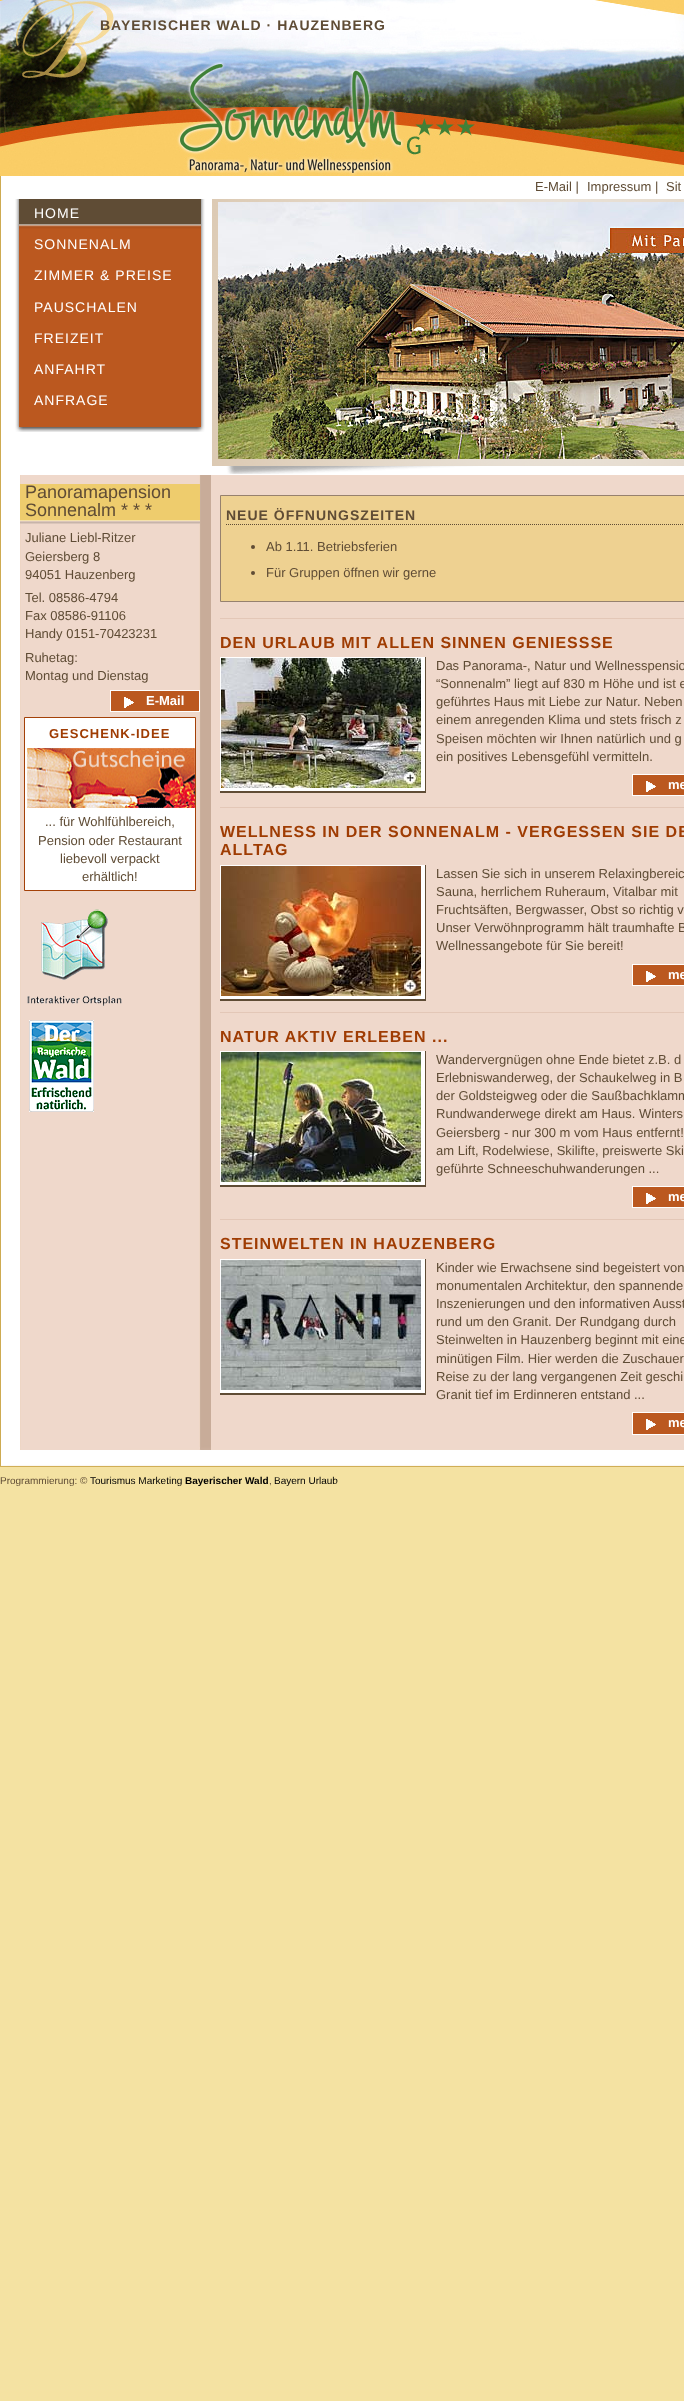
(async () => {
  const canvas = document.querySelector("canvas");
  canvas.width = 684;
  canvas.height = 2401;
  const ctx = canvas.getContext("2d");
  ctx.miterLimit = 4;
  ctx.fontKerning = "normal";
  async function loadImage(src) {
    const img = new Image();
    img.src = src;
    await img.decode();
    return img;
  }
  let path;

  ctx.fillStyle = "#f4e2a2";
  ctx.fillRect(0, 0, 684, 2401);
  ctx.fillStyle = "#ffffff";
  ctx.fillRect(1, 176, 683, 1266);
  ctx.fillStyle = "#ceab51";
  ctx.fillRect(0, 176, 1, 1266);
  ctx.drawImage(await loadImage("img/1.png"), 0, 0, 684, 176);
  ctx.drawImage(await loadImage("img/2.png"), 15, 199, 190, 233);
  ctx.drawImage(await loadImage("img/3.png"), 19, 199, 182, 31);
  ctx.drawImage(await loadImage("img/4.png"), 212, 199, 472, 275);
  ctx.drawImage(await loadImage("img/5.png"), 218, 202, 466, 257);
  ctx.drawImage(await loadImage("img/6.png"), 20, 475, 664, 967);
  ctx.drawImage(await loadImage("img/7.png"), 20, 484, 180, 40);
  ctx.fillStyle = "#bb581f";
  ctx.fillRect(111, 691, 88, 20);
  ctx.drawImage(await loadImage("img/8.png"), 124, 697, 10, 11);
  ctx.strokeStyle = "#ffffff";
  ctx.strokeRect(110.5, 690.5, 89, 21);
  ctx.fillStyle = "#ffffff";
  ctx.beginPath();
  ctx.rect(24.5, 717.5, 171, 173);
  ctx.fill();
  ctx.strokeStyle = "#a44108";
  ctx.stroke();
  ctx.drawImage(await loadImage("img/9.png"), 27, 748, 168, 60);
  ctx.drawImage(await loadImage("img/10.png"), 27, 909, 95, 97);
  ctx.drawImage(await loadImage("img/11.png"), 29, 1020, 65, 92);
  ctx.fillStyle = "#eed191";
  ctx.beginPath();
  ctx.rect(220.5, 495.5, 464, 106);
  ctx.fill();
  ctx.strokeStyle = "#96816e";
  ctx.stroke();
  path = new Path2D("M226 524.5H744");
  ctx.strokeStyle = "#5f4c35";
  ctx.setLineDash([1, 1]);
  ctx.stroke(path);
  ctx.fillStyle = "#5f4c35";
  ctx.beginPath();
  ctx.arc(253, 547, 2, 0, Math.PI * 2);
  ctx.fill();
  ctx.beginPath();
  ctx.arc(253, 573, 2, 0, Math.PI * 2);
  ctx.fill();
  for (const [x, y, w, h, color] of [
    [220, 618, 464, 1, "#e3c7b7"],
    [220, 657, 205, 134, "#ffffff"],
    [425, 657, 1, 136, "#5f4c35"],
    [220, 791, 206, 2, "#5f4c35"],
  ]) {
    ctx.fillStyle = color;
    ctx.fillRect(x, y, w, h);
  }
  ctx.drawImage(await loadImage("img/12.png"), 221, 658, 200, 130);
  ctx.fillStyle = "#bb581f";
  ctx.fillRect(633, 775, 51, 20);
  ctx.drawImage(await loadImage("img/13.png"), 646, 781, 10, 11);
  ctx.strokeStyle = "#ffffff";
  ctx.setLineDash([]);
  ctx.strokeRect(632.5, 774.5, 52, 21);
  for (const [x, y, w, h, color] of [
    [220, 807, 464, 1, "#e3c7b7"],
    [220, 865, 205, 134, "#ffffff"],
    [425, 865, 1, 136, "#5f4c35"],
    [220, 999, 206, 2, "#5f4c35"],
  ]) {
    ctx.fillStyle = color;
    ctx.fillRect(x, y, w, h);
  }
  ctx.drawImage(await loadImage("img/14.png"), 221, 866, 200, 130);
  ctx.fillStyle = "#bb581f";
  ctx.fillRect(633, 965, 51, 20);
  ctx.drawImage(await loadImage("img/13.png"), 646, 971, 10, 11);
  ctx.strokeRect(632.5, 964.5, 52, 21);
  for (const [x, y, w, h, color] of [
    [220, 1012, 464, 1, "#e3c7b7"],
    [220, 1051, 205, 134, "#ffffff"],
    [425, 1051, 1, 136, "#5f4c35"],
    [220, 1185, 206, 2, "#5f4c35"],
  ]) {
    ctx.fillStyle = color;
    ctx.fillRect(x, y, w, h);
  }
  ctx.drawImage(await loadImage("img/15.png"), 221, 1052, 200, 130);
  ctx.fillStyle = "#bb581f";
  ctx.fillRect(633, 1187, 51, 20);
  ctx.drawImage(await loadImage("img/13.png"), 646, 1193, 10, 11);
  ctx.strokeRect(632.5, 1186.5, 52, 21);
  for (const [x, y, w, h, color] of [
    [220, 1219, 464, 1, "#e3c7b7"],
    [220, 1259, 205, 134, "#ffffff"],
    [425, 1259, 1, 136, "#5f4c35"],
    [220, 1393, 206, 2, "#5f4c35"],
  ]) {
    ctx.fillStyle = color;
    ctx.fillRect(x, y, w, h);
  }
  ctx.drawImage(await loadImage("img/16.png"), 221, 1260, 200, 130);
  ctx.fillStyle = "#bb581f";
  ctx.fillRect(633, 1413, 51, 21);
  ctx.drawImage(await loadImage("img/13.png"), 646, 1419, 10, 11);
  ctx.strokeRect(632.5, 1412.5, 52, 22);
  ctx.drawImage(await loadImage("img/17.png"), 0, 1442, 684, 25);
  ctx.letterSpacing = "1px";
  ctx.font = "bold 14px Liberation Sans";
  ctx.fillStyle = "#5f4c35";
  ctx.fillText("BAYERISCHER WALD · HAUZENBERG", 100, 30);
  ctx.letterSpacing = "0px";
  ctx.font = "13px Liberation Sans";
  for (const [text, x, y] of [
    ["E-Mail |", 535, 191],
    ["Impressum |", 587, 191],
    ["Sit", 666, 191],
  ]) {
    ctx.fillText(text, x, y);
  }
  ctx.letterSpacing = "1px";
  ctx.font = "14px Liberation Sans";
  ctx.fillStyle = "#ffffff";
  for (const [text, x, y] of [
    ["HOME", 34, 218],
    ["SONNENALM", 34, 249],
    ["ZIMMER & PREISE", 34, 280],
    ["PAUSCHALEN", 34, 312],
    ["FREIZEIT", 34, 343],
    ["ANFAHRT", 34, 374],
    ["ANFRAGE", 34, 405],
  ]) {
    ctx.fillText(text, x, y);
  }
  ctx.letterSpacing = "0px";
  ctx.font = "18px Liberation Sans";
  ctx.fillStyle = "#5f4c35";
  ctx.fillText("Panoramapension", 25, 498);
  ctx.fillText("Sonnenalm * * *", 25, 516);
  ctx.font = "13px Liberation Sans";
  for (const [text, x, y] of [
    ["Juliane Liebl-Ritzer", 25, 542],
    ["Geiersberg 8", 25, 561],
    ["94051 Hauzenberg", 25, 579],
    ["Tel. 08586-4794", 25, 602],
    ["Fax 08586-91106", 25, 620],
    ["Handy 0151-70423231", 25, 638],
    ["Ruhetag:", 25, 662],
    ["Montag und Dienstag", 25, 680],
  ]) {
    ctx.fillText(text, x, y);
  }
  ctx.font = "bold 13px Liberation Sans";
  ctx.fillStyle = "#ffffff";
  ctx.fillText("E-Mail", 146, 705);
  ctx.letterSpacing = "1px";
  ctx.fillStyle = "#9f3c03";
  ctx.fillText("GESCHENK-IDEE", 49, 738);
  ctx.letterSpacing = "0px";
  ctx.font = "13px Liberation Sans";
  ctx.fillStyle = "#5f4c35";
  for (const [text, x, y] of [
    ["... für Wohlfühlbereich,", 45, 826],
    ["Pension oder Restaurant", 38, 845],
    ["liebevoll verpackt", 60, 863],
    ["erhältlich!", 82, 881],
  ]) {
    ctx.fillText(text, x, y);
  }
  ctx.letterSpacing = "1px";
  ctx.font = "bold 14px Liberation Sans";
  ctx.fillText("NEUE ÖFFNUNGSZEITEN", 226, 520);
  ctx.letterSpacing = "0px";
  ctx.font = "13px Liberation Sans";
  ctx.fillText("Ab 1.11. Betriebsferien", 266, 551);
  ctx.fillText("Für Gruppen öffnen wir gerne", 266, 577);
  ctx.letterSpacing = "1px";
  ctx.font = "bold 16px Liberation Sans";
  ctx.fillStyle = "#9f3c03";
  ctx.fillText("DEN URLAUB MIT ALLEN SINNEN GENIESSSE", 220, 648);
  ctx.letterSpacing = "0px";
  ctx.font = "13px Liberation Sans";
  ctx.fillStyle = "#5f4c35";
  for (const [text, x, y] of [
    ["Das Panorama-, Natur und Wellnesspensio", 436, 670],
    ["“Sonnenalm” liegt auf 830 m Höhe und ist e", 436, 688],
    ["geführtes Haus mit Liebe zur Natur. Neben", 436, 706],
    ["einem anregenden Klima und stets frisch z", 436, 724],
    ["Speisen möchten wir Ihnen natürlich und g", 436, 743],
    ["ein positives Lebensgefühl vermitteln.", 436, 761],
  ]) {
    ctx.fillText(text, x, y);
  }
  ctx.font = "bold 13px Liberation Sans";
  ctx.fillStyle = "#ffffff";
  ctx.fillText("me", 668, 789);
  ctx.letterSpacing = "1px";
  ctx.font = "bold 16px Liberation Sans";
  ctx.fillStyle = "#9f3c03";
  ctx.fillText("WELLNESS IN DER SONNENALM - VERGESSEN SIE DE", 220, 837);
  ctx.fillText("ALLTAG", 220, 855);
  ctx.letterSpacing = "0px";
  ctx.font = "13px Liberation Sans";
  ctx.fillStyle = "#5f4c35";
  for (const [text, x, y] of [
    ["Lassen Sie sich in unserem Relaxingbereic", 436, 878],
    ["Sauna, herrlichem Ruheraum, Vitalbar mit", 436, 896],
    ["Fruchtsäften, Bergwasser, Obst so richtig v", 436, 914],
    ["Unser Verwöhnprogramm hält traumhafte B", 436, 932],
    ["Wellnessangebote für Sie bereit!", 436, 950],
  ]) {
    ctx.fillText(text, x, y);
  }
  ctx.font = "bold 13px Liberation Sans";
  ctx.fillStyle = "#ffffff";
  ctx.fillText("me", 668, 979);
  ctx.letterSpacing = "1px";
  ctx.font = "bold 16px Liberation Sans";
  ctx.fillStyle = "#9f3c03";
  ctx.fillText("NATUR AKTIV ERLEBEN ...", 220, 1042);
  ctx.letterSpacing = "0px";
  ctx.font = "13px Liberation Sans";
  ctx.fillStyle = "#5f4c35";
  for (const [text, x, y] of [
    ["Wandervergnügen ohne Ende bietet z.B. d", 436, 1064],
    ["Erlebniswanderweg, der Schaukelweg in B", 436, 1082],
    ["der Goldsteigweg oder die Saußbachklamm", 436, 1100],
    ["Rundwanderwege direkt am Haus. Winters", 436, 1118],
    ["Geiersberg - nur 300 m vom Haus entfernt!", 436, 1137],
    ["am Lift, Rodelwiese, Skilifte, preiswerte Ski", 436, 1155],
    ["geführte Schneeschuhwanderungen ...", 436, 1173],
  ]) {
    ctx.fillText(text, x, y);
  }
  ctx.font = "bold 13px Liberation Sans";
  ctx.fillStyle = "#ffffff";
  ctx.fillText("me", 668, 1201);
  ctx.letterSpacing = "1px";
  ctx.font = "bold 16px Liberation Sans";
  ctx.fillStyle = "#9f3c03";
  ctx.fillText("STEINWELTEN IN HAUZENBERG", 220, 1249);
  ctx.letterSpacing = "0px";
  ctx.font = "13px Liberation Sans";
  ctx.fillStyle = "#5f4c35";
  for (const [text, x, y] of [
    ["Kinder wie Erwachsene sind begeistert von", 436, 1272],
    ["monumentalen Architektur, den spannende", 436, 1290],
    ["Inszenierungen und den informativen Ausst", 436, 1308],
    ["rund um den Granit. Der Rundgang durch", 436, 1326],
    ["Steinwelten in Hauzenberg beginnt mit eine", 436, 1344],
    ["minütigen Film. Hier werden die Zuschauer", 436, 1363],
    ["Reise zu der lang vergangenen Zeit geschi", 436, 1381],
    ["Granit tief im Erdinneren entstand ...", 436, 1399],
  ]) {
    ctx.fillText(text, x, y);
  }
  ctx.font = "bold 13px Liberation Sans";
  ctx.fillStyle = "#ffffff";
  ctx.fillText("me", 668, 1427);
  ctx.font = "10px Liberation Sans";
  ctx.fillStyle = "#5f4c35";
  ctx.fillText("Programmierung: ©", 0, 1484);
  ctx.fillStyle = "#000000";
  ctx.fillText("Tourismus Marketing", 90, 1484);
  ctx.font = "bold 10px Liberation Sans";
  ctx.fillText("Bayerischer Wald", 185, 1484);
  ctx.font = "10px Liberation Sans";
  ctx.fillStyle = "#5f4c35";
  ctx.fillText(",", 269, 1484);
  ctx.fillStyle = "#000000";
  ctx.fillText("Bayern Urlaub", 274, 1484);
})();
